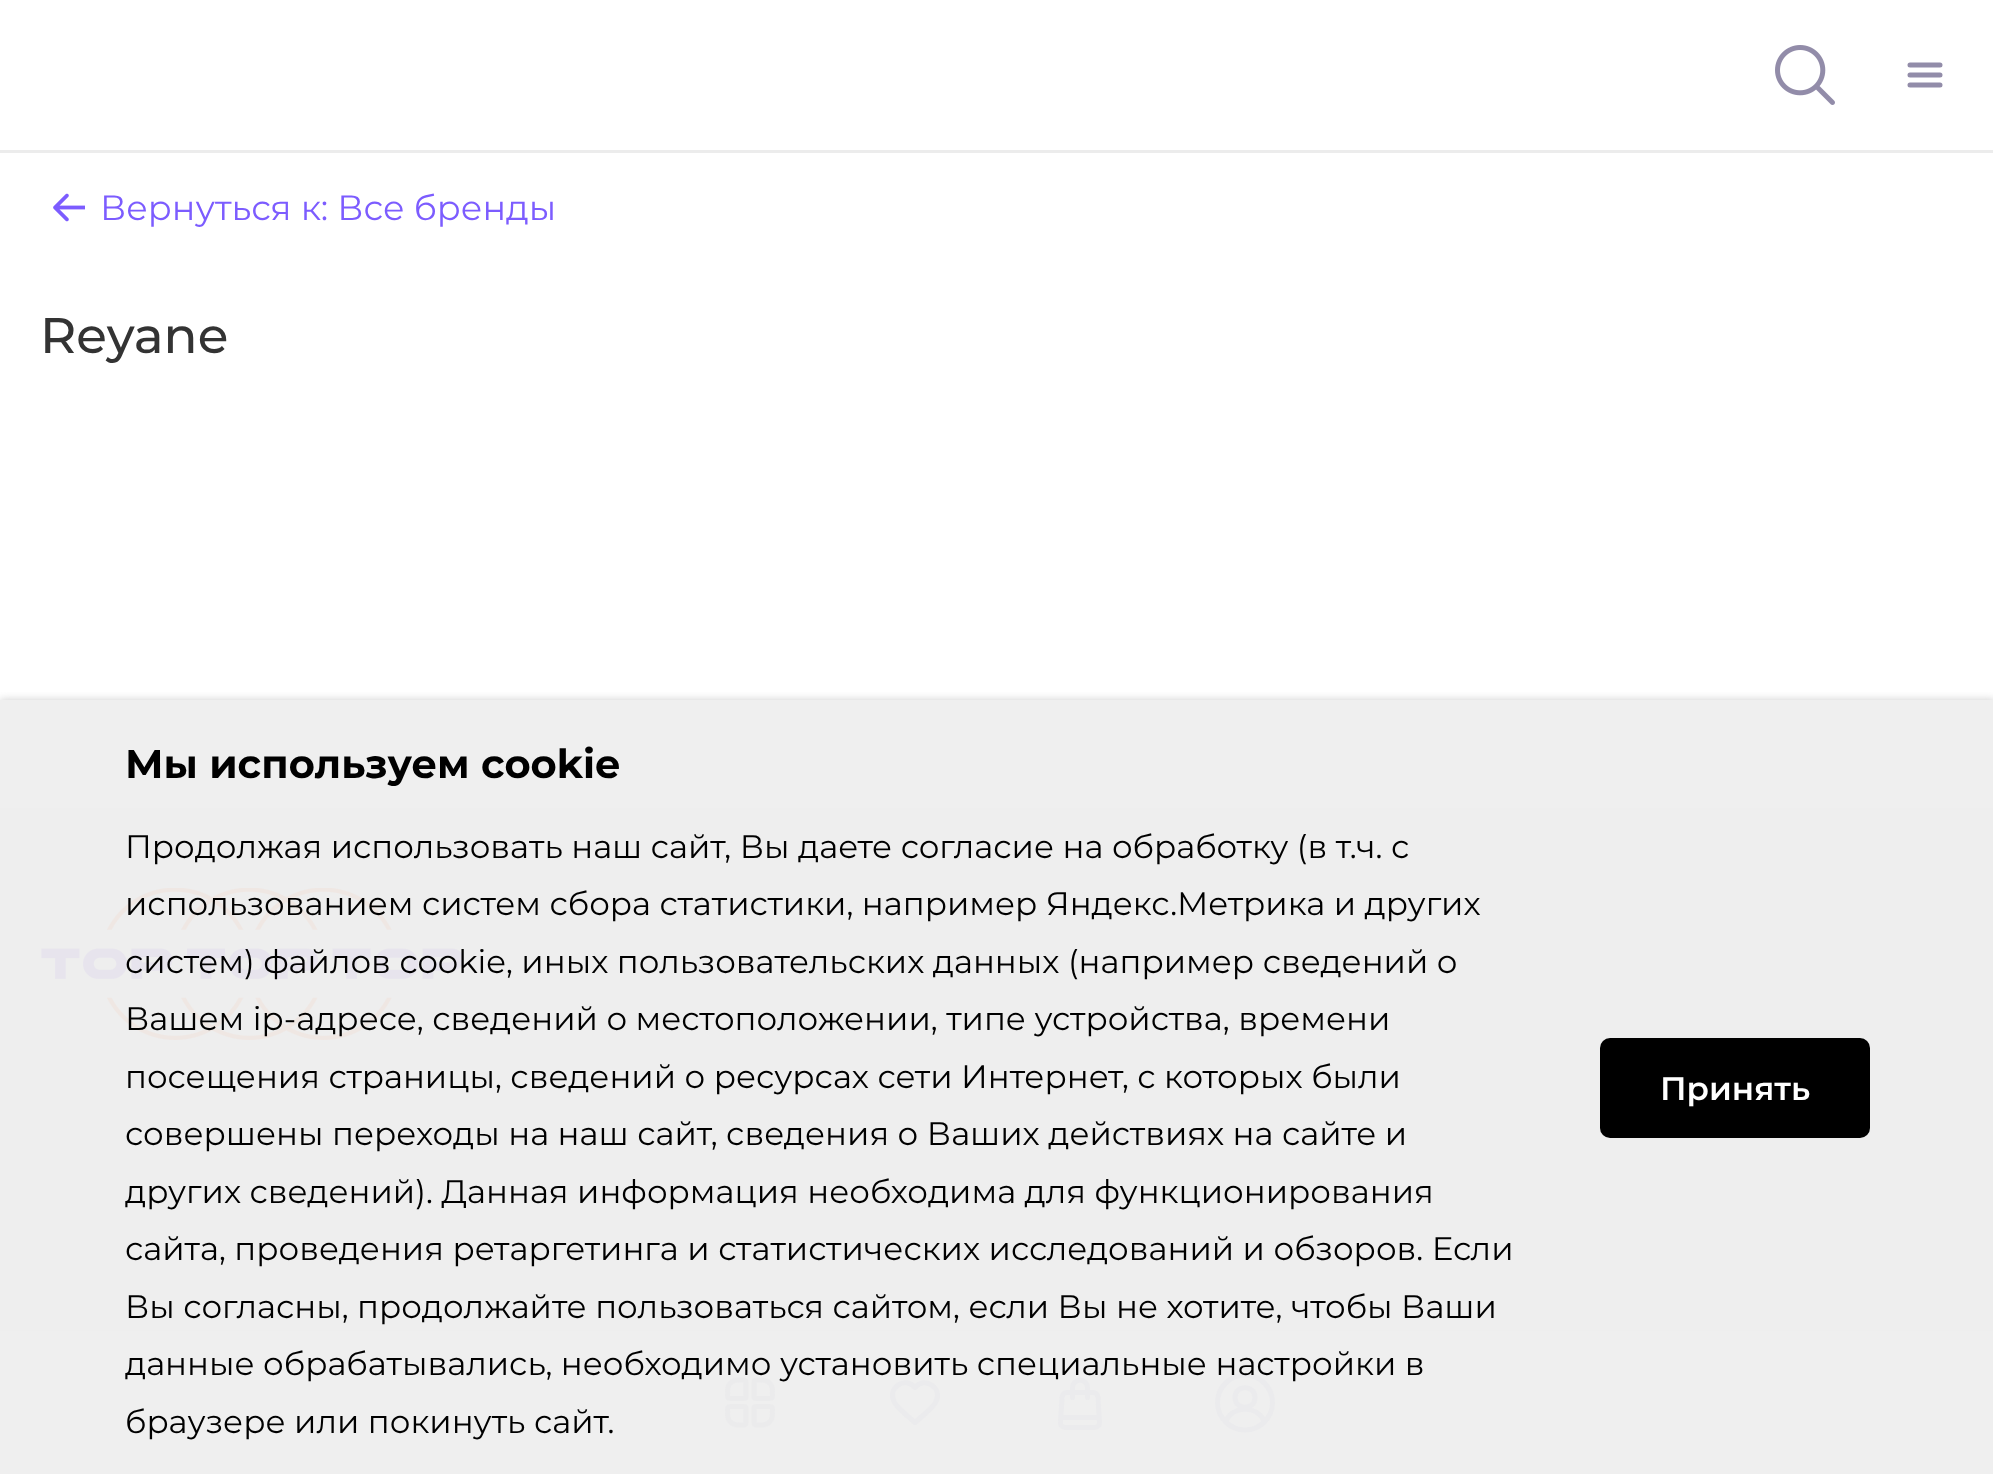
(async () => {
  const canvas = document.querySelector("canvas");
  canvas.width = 1993;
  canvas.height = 1474;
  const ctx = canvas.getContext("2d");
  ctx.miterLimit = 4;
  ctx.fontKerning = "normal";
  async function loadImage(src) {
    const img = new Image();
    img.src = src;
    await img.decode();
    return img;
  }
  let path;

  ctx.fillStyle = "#ffffff";
  ctx.fillRect(0, 0, 1993, 1474);
  ctx.fillStyle = "#efefef";
  ctx.fillRect(0, 700, 1993, 108);
  ctx.fillStyle = "#ececec";
  ctx.fillRect(0, 150, 1993, 3);
  ctx.drawImage(await loadImage("img/1.png"), 1775, 45, 60, 60);
  path = new Path2D("M1910 65H1940M1910 75H1940M1910 85H1940");
  ctx.strokeStyle = "#928ca9";
  ctx.lineWidth = 5;
  ctx.lineCap = "round";
  ctx.stroke(path);
  ctx.fillStyle = "#efefef";
  ctx.fillRect(0, 1331, 1993, 143);
  ctx.drawImage(await loadImage("img/2.png"), 725, 1377, 50, 51);
  path = new Path2D("M915 1387.5C904.5 1375.5 887 1388.5 894 1401.5C897 1407.5 903 1412 907.5 1416L915 1422.5L922.5 1416C927 1412 933 1407.5 936 1401.5C943 1388.5 925 1375.5 915 1387.5Z");
  ctx.strokeStyle = "#ebebed";
  ctx.lineJoin = "round";
  ctx.stroke(path);
  path = new Path2D("M1072.5 1397.5V1387.5C1072.5 1383.5 1076 1380 1080 1380C1084 1380 1087.5 1383.5 1087.5 1387.5V1397.5M1062.5 1417.5H1097.5M1065.5 1427.5H1094.5C1097.5 1427.5 1100 1425 1099.5 1422L1098 1397C1097.5 1394.5 1095.5 1392.5 1093 1392.5H1067C1064.5 1392.5 1062.5 1394.5 1062 1397L1060.5 1422C1060 1425 1062.5 1427.5 1065.5 1427.5Z");
  ctx.lineJoin = "miter";
  ctx.stroke(path);
  ctx.save();
  ctx.beginPath();
  ctx.rect(1215, 1373, 60, 60);
  ctx.clip();
  path = new Path2D("M1264 1420.5C1256.5 1405.5 1233.5 1405.5 1226 1420.5M1217.5 1402.5C1217.5 1387.5 1230 1375 1245 1375C1260 1375 1272.5 1387.5 1272.5 1402.5C1272.5 1417.5 1260 1430 1245 1430C1230 1430 1217.5 1417.5 1217.5 1402.5ZM1255 1397.5C1255 1410.5 1235 1410.5 1235 1397.5C1235 1384.5 1255 1384.5 1255 1397.5Z");
  ctx.lineCap = "butt";
  ctx.stroke(path);
  ctx.restore();
  ctx.drawImage(await loadImage("img/3.png"), 53, 193, 32, 29);
  ctx.fillStyle = "#eeeeee";
  ctx.fillRect(0, 808, 1993, 523);
  ctx.drawImage(await loadImage("img/4.png"), 41, 888, 423, 152);
  ctx.save();
  ctx.beginPath();
  ctx.rect(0, 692, 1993, 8);
  ctx.clip();
  ctx.fillStyle = "#cccccc";
  ctx.filter = "blur(4px)";
  ctx.beginPath();
  ctx.rect(0, 700, 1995, 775);
  ctx.fill();
  ctx.filter = "none";
  ctx.restore();
  ctx.fillStyle = "#000000";
  ctx.beginPath();
  ctx.roundRect(1600, 1038, 270, 100, 10);
  ctx.fill();
  ctx.font = "35px Montserrat";
  ctx.fillStyle = "#7c5cff";
  ctx.fillText("Вернуться к: Все бренды", 100, 220);
  ctx.font = "500 50px Montserrat";
  ctx.fillStyle = "#333333";
  ctx.fillText("Reyane", 40, 353);
  ctx.font = "bold 40px Montserrat";
  ctx.fillStyle = "#000000";
  ctx.fillText("Мы используем cookie", 125, 778);
  ctx.font = "32.5px Montserrat";
  for (const [text, x, y] of [
    ["Продолжая использовать наш cайт, Вы даете согласие на обработку (в т.ч. с", 125, 858],
    ["использованием систем сбора статистики, например Яндекс.Метрика и других", 125, 915],
    ["систем) файлов cookie, иных пользовательских данных (например сведений о", 125, 973],
    ["Вашем ip-адресе, сведений о местоположении, типе устройства, времени", 125, 1030],
    ["посещения страницы, сведений о ресурсах сети Интернет, с которых были", 125, 1088],
    ["совершены переходы на наш сайт, сведения о Ваших действиях на сайте и", 125, 1145],
    ["других сведений). Данная информация необходима для функционирования", 125, 1203],
    ["сайта, проведения ретаргетинга и статистических исследований и обзоров. Если", 125, 1260],
    ["Вы согласны, продолжайте пользоваться сайтом, если Вы не хотите, чтобы Ваши", 125, 1318],
    ["данные обрабатывались, необходимо установить специальные настройки в", 125, 1375],
    ["браузере или покинуть сайт.", 125, 1433],
  ]) {
    ctx.fillText(text, x, y);
  }
  ctx.font = "600 32.5px Montserrat";
  ctx.fillStyle = "#ffffff";
  ctx.fillText("Принять", 1660, 1100);
})();
